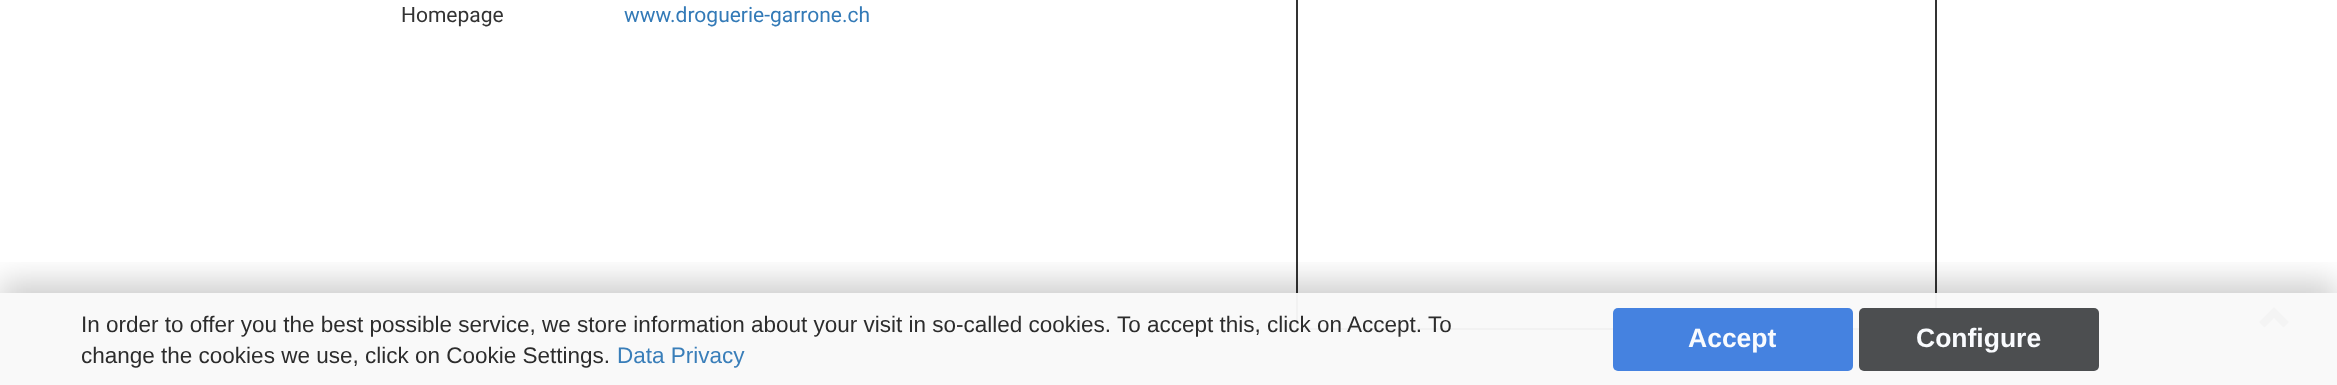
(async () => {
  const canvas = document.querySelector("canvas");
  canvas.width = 2337;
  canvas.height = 385;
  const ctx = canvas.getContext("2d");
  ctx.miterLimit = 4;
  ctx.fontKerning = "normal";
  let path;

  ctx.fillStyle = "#ffffff";
  ctx.fillRect(0, 0, 2337, 385);
  ctx.strokeStyle = "#333333";
  ctx.lineWidth = 2;
  ctx.strokeRect(1297, -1, 639, 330);
  ctx.fillStyle = "#f4f4f4";
  ctx.beginPath();
  ctx.roundRect(2242.5, 290.5, 62, 63, 31);
  ctx.fill();
  ctx.strokeStyle = "#ffffff";
  ctx.lineWidth = 5;
  ctx.stroke();
  ctx.fillStyle = "#626262";
  path = new Path2D("M2274 307L2259 322L2264.5 327.5L2274 318L2283.5 327.5L2289 322Z");
  ctx.fill(path);
  ctx.save();
  ctx.beginPath();
  ctx.rect(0, 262, 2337, 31);
  ctx.clip();
  ctx.fillStyle = "rgba(0, 0, 0, 0.19)";
  ctx.filter = "blur(15px)";
  ctx.beginPath();
  ctx.rect(0, 281, 2337, 93);
  ctx.fill();
  ctx.filter = "none";
  ctx.restore();
  ctx.fillStyle = "rgba(249, 249, 249, 0.97)";
  ctx.fillRect(0, 293, 2337, 92);
  ctx.fillStyle = "rgba(63, 126, 223, 0.97)";
  ctx.beginPath();
  ctx.roundRect(1613, 308, 240, 63, 5);
  ctx.fill();
  ctx.fillStyle = "rgba(70, 72, 74, 0.97)";
  ctx.beginPath();
  ctx.roundRect(1859, 308, 240, 63, 5);
  ctx.fill();
  ctx.font = "21px Roboto";
  ctx.fillStyle = "#333333";
  ctx.fillText("Homepage", 401, 22);
  ctx.fillStyle = "#337ab7";
  ctx.fillText("www.droguerie-garrone.ch", 624, 22);
  ctx.font = "22.5px Liberation Sans";
  ctx.fillStyle = "#2c2c2c";
  ctx.fillText("In order to offer you the best possible service, we store information about your visit in so-called cookies. To accept this, click on Accept. To", 81, 332);
  ctx.fillText("change the cookies we use, click on Cookie Settings.", 81, 363);
  ctx.fillStyle = "#397eb9";
  ctx.fillText("Data Privacy", 617, 363);
  ctx.font = "bold 26.5px Liberation Sans";
  ctx.fillStyle = "#f9fbfe";
  ctx.fillText("Accept", 1688, 347);
  ctx.fillText("Configure", 1916, 347);
})();
